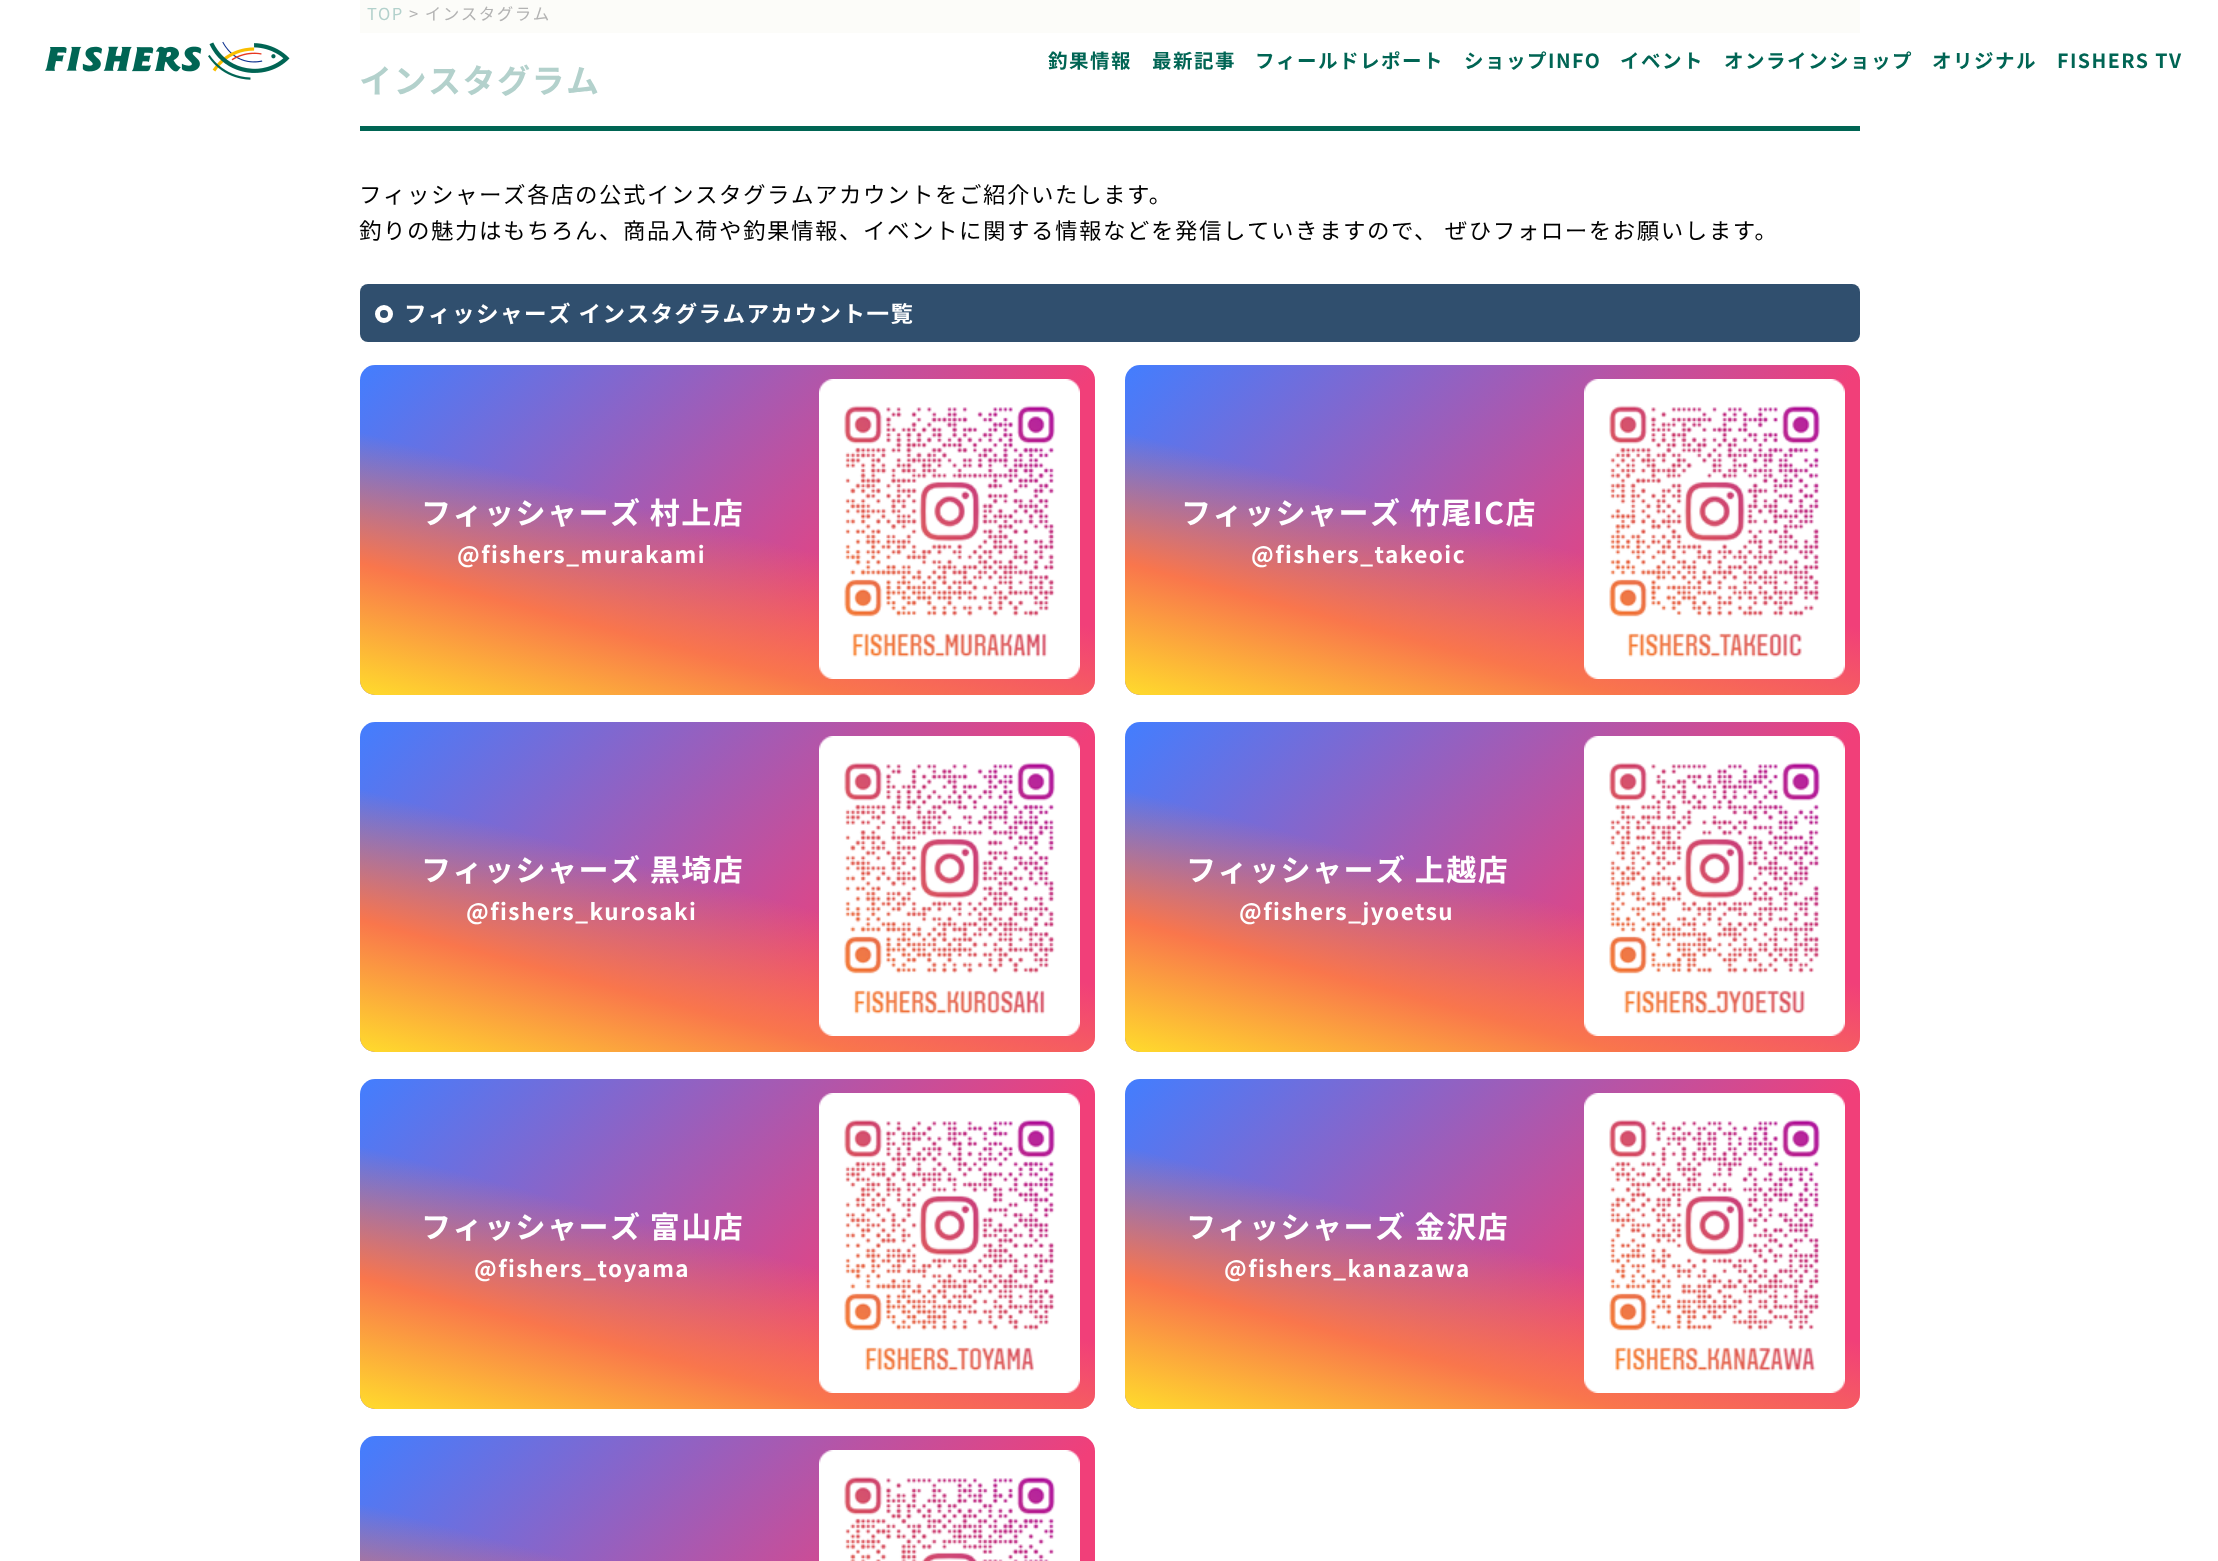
(async () => {
  const canvas = document.querySelector("canvas");
  canvas.width = 2218;
  canvas.height = 1561;
  const ctx = canvas.getContext("2d");
  ctx.miterLimit = 4;
  ctx.fontKerning = "normal";
  async function loadImage(src) {
    const img = new Image();
    img.src = src;
    await img.decode();
    return img;
  }
  let gradient;

  ctx.fillStyle = "#ffffff";
  ctx.fillRect(0, 0, 2218, 1561);
  ctx.fillStyle = "#fcfcf9";
  ctx.fillRect(360, 0, 1500, 33);
  ctx.fillStyle = "#006554";
  ctx.fillRect(360, 126, 1500, 5);
  ctx.fillStyle = "#304f6e";
  ctx.beginPath();
  ctx.roundRect(360, 284, 1500, 58, 8);
  ctx.fill();
  ctx.beginPath();
  ctx.arc(384, 314, 6.5, 0, Math.PI * 2);
  ctx.strokeStyle = "#ffffff";
  ctx.lineWidth = 5;
  ctx.stroke();
  gradient = ctx.createLinearGradient(461, 263, 994, 796);
  gradient.addColorStop(0, "#427eff");
  gradient.addColorStop(0.7, "#f13f79");
  ctx.fillStyle = gradient;
  ctx.beginPath();
  ctx.roundRect(360, 365, 735, 330, 15);
  ctx.fill();
  gradient = ctx.createLinearGradient(662, 775, 793, 284);
  gradient.addColorStop(0, "#ffdb2c");
  gradient.addColorStop(0.25, "#f9764c");
  gradient.addColorStop(0.5, "rgba(249, 118, 76, 0)");
  ctx.fillStyle = gradient;
  ctx.beginPath();
  ctx.roundRect(360, 365, 735, 330, 15);
  ctx.fill();
  ctx.drawImage(await loadImage("img/1.png"), 819, 379, 261, 300);
  gradient = ctx.createLinearGradient(1226, 263, 1759, 796);
  gradient.addColorStop(0, "#427eff");
  gradient.addColorStop(0.7, "#f13f79");
  ctx.fillStyle = gradient;
  ctx.beginPath();
  ctx.roundRect(1125, 365, 735, 330, 15);
  ctx.fill();
  gradient = ctx.createLinearGradient(1427, 775, 1558, 284);
  gradient.addColorStop(0, "#ffdb2c");
  gradient.addColorStop(0.25, "#f9764c");
  gradient.addColorStop(0.5, "rgba(249, 118, 76, 0)");
  ctx.fillStyle = gradient;
  ctx.beginPath();
  ctx.roundRect(1125, 365, 735, 330, 15);
  ctx.fill();
  ctx.drawImage(await loadImage("img/2.png"), 1584, 379, 261, 300);
  gradient = ctx.createLinearGradient(461, 620, 994, 1153);
  gradient.addColorStop(0, "#427eff");
  gradient.addColorStop(0.7, "#f13f79");
  ctx.fillStyle = gradient;
  ctx.beginPath();
  ctx.roundRect(360, 722, 735, 330, 15);
  ctx.fill();
  gradient = ctx.createLinearGradient(662, 1132, 793, 641);
  gradient.addColorStop(0, "#ffdb2c");
  gradient.addColorStop(0.25, "#f9764c");
  gradient.addColorStop(0.5, "rgba(249, 118, 76, 0)");
  ctx.fillStyle = gradient;
  ctx.beginPath();
  ctx.roundRect(360, 722, 735, 330, 15);
  ctx.fill();
  ctx.drawImage(await loadImage("img/3.png"), 819, 736, 261, 300);
  gradient = ctx.createLinearGradient(1226, 620, 1759, 1153);
  gradient.addColorStop(0, "#427eff");
  gradient.addColorStop(0.7, "#f13f79");
  ctx.fillStyle = gradient;
  ctx.beginPath();
  ctx.roundRect(1125, 722, 735, 330, 15);
  ctx.fill();
  gradient = ctx.createLinearGradient(1427, 1132, 1558, 641);
  gradient.addColorStop(0, "#ffdb2c");
  gradient.addColorStop(0.25, "#f9764c");
  gradient.addColorStop(0.5, "rgba(249, 118, 76, 0)");
  ctx.fillStyle = gradient;
  ctx.beginPath();
  ctx.roundRect(1125, 722, 735, 330, 15);
  ctx.fill();
  ctx.drawImage(await loadImage("img/4.png"), 1584, 736, 261, 300);
  gradient = ctx.createLinearGradient(461, 977, 994, 1510);
  gradient.addColorStop(0, "#427eff");
  gradient.addColorStop(0.7, "#f13f79");
  ctx.fillStyle = gradient;
  ctx.beginPath();
  ctx.roundRect(360, 1079, 735, 330, 15);
  ctx.fill();
  gradient = ctx.createLinearGradient(662, 1489, 793, 998);
  gradient.addColorStop(0, "#ffdb2c");
  gradient.addColorStop(0.25, "#f9764c");
  gradient.addColorStop(0.5, "rgba(249, 118, 76, 0)");
  ctx.fillStyle = gradient;
  ctx.beginPath();
  ctx.roundRect(360, 1079, 735, 330, 15);
  ctx.fill();
  ctx.drawImage(await loadImage("img/5.png"), 819, 1093, 261, 300);
  gradient = ctx.createLinearGradient(1226, 977, 1759, 1510);
  gradient.addColorStop(0, "#427eff");
  gradient.addColorStop(0.7, "#f13f79");
  ctx.fillStyle = gradient;
  ctx.beginPath();
  ctx.roundRect(1125, 1079, 735, 330, 15);
  ctx.fill();
  gradient = ctx.createLinearGradient(1427, 1489, 1558, 998);
  gradient.addColorStop(0, "#ffdb2c");
  gradient.addColorStop(0.25, "#f9764c");
  gradient.addColorStop(0.5, "rgba(249, 118, 76, 0)");
  ctx.fillStyle = gradient;
  ctx.beginPath();
  ctx.roundRect(1125, 1079, 735, 330, 15);
  ctx.fill();
  ctx.drawImage(await loadImage("img/6.png"), 1584, 1093, 261, 300);
  gradient = ctx.createLinearGradient(461, 1334, 994, 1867);
  gradient.addColorStop(0, "#427eff");
  gradient.addColorStop(0.7, "#f13f79");
  ctx.fillStyle = gradient;
  ctx.beginPath();
  ctx.roundRect(360, 1436, 735, 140, 15);
  ctx.fill();
  gradient = ctx.createLinearGradient(662, 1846, 793, 1355);
  gradient.addColorStop(0, "#ffdb2c");
  gradient.addColorStop(0.25, "#f9764c");
  gradient.addColorStop(0.5, "rgba(249, 118, 76, 0)");
  ctx.fillStyle = gradient;
  ctx.fillRect(360, 1505, 207, 56);
  ctx.drawImage(await loadImage("img/7.png"), 819, 1450, 261, 111);
  ctx.drawImage(await loadImage("img/8.png"), 45, 41, 245, 39);
  ctx.letterSpacing = "1.5px";
  ctx.font = "16.5px Noto Sans JP";
  ctx.fillStyle = "#b3d1cc";
  ctx.fillText("TOP", 367, 20);
  ctx.fillStyle = "#b3b3b3";
  ctx.fillText("> インスタグラム", 409, 20);
  ctx.font = "bold 33px Noto Sans JP";
  ctx.fillStyle = "#b3d1cc";
  ctx.fillText("インスタグラム", 359, 93);
  ctx.font = "22.5px Noto Sans JP";
  ctx.fillStyle = "#000000";
  ctx.fillText("フィッシャーズ各店の公式インスタグラムアカウントをご紹介いたします。", 359, 203);
  ctx.fillText("釣りの魅力はもちろん、商品入荷や釣果情報、イベントに関する情報などを発信していきますので、 ぜひフォローをお願いします。", 359, 239);
  ctx.font = "bold 22.5px Noto Sans JP";
  ctx.fillStyle = "#ffffff";
  ctx.fillText("フィッシャーズ インスタグラムアカウント一覧", 404, 322);
  ctx.font = "bold 30px Noto Sans JP";
  ctx.fillText("フィッシャーズ 村上店", 421, 524);
  ctx.font = "bold 22.5px Noto Sans JP";
  ctx.fillText("@fishers_murakami", 457, 563);
  ctx.font = "bold 30px Noto Sans JP";
  ctx.fillText("フィッシャーズ 竹尾IC店", 1181, 524);
  ctx.font = "bold 22.5px Noto Sans JP";
  ctx.fillText("@fishers_takeoic", 1251, 563);
  ctx.font = "bold 30px Noto Sans JP";
  ctx.fillText("フィッシャーズ 黒埼店", 421, 881);
  ctx.font = "bold 22.5px Noto Sans JP";
  ctx.fillText("@fishers_kurosaki", 466, 920);
  ctx.font = "bold 30px Noto Sans JP";
  ctx.fillText("フィッシャーズ 上越店", 1186, 881);
  ctx.font = "bold 22.5px Noto Sans JP";
  ctx.fillText("@fishers_jyoetsu", 1239, 920);
  ctx.font = "bold 30px Noto Sans JP";
  ctx.fillText("フィッシャーズ 富山店", 421, 1238);
  ctx.font = "bold 22.5px Noto Sans JP";
  ctx.fillText("@fishers_toyama", 474, 1277);
  ctx.font = "bold 30px Noto Sans JP";
  ctx.fillText("フィッシャーズ 金沢店", 1186, 1238);
  ctx.font = "bold 22.5px Noto Sans JP";
  ctx.fillText("@fishers_kanazawa", 1224, 1277);
  ctx.font = "bold 19.5px Noto Sans JP";
  ctx.fillStyle = "#006554";
  for (const [text, x, y] of [
    ["釣果情報", 1048, 68],
    ["最新記事", 1152, 68],
    ["フィールドレポート", 1255, 68],
    ["ショップINFO", 1464, 68],
    ["イベント", 1620, 68],
    ["オンラインショップ", 1724, 68],
    ["オリジナル", 1932, 68],
    ["FISHERS TV", 2057, 68],
  ]) {
    ctx.fillText(text, x, y);
  }
})();
